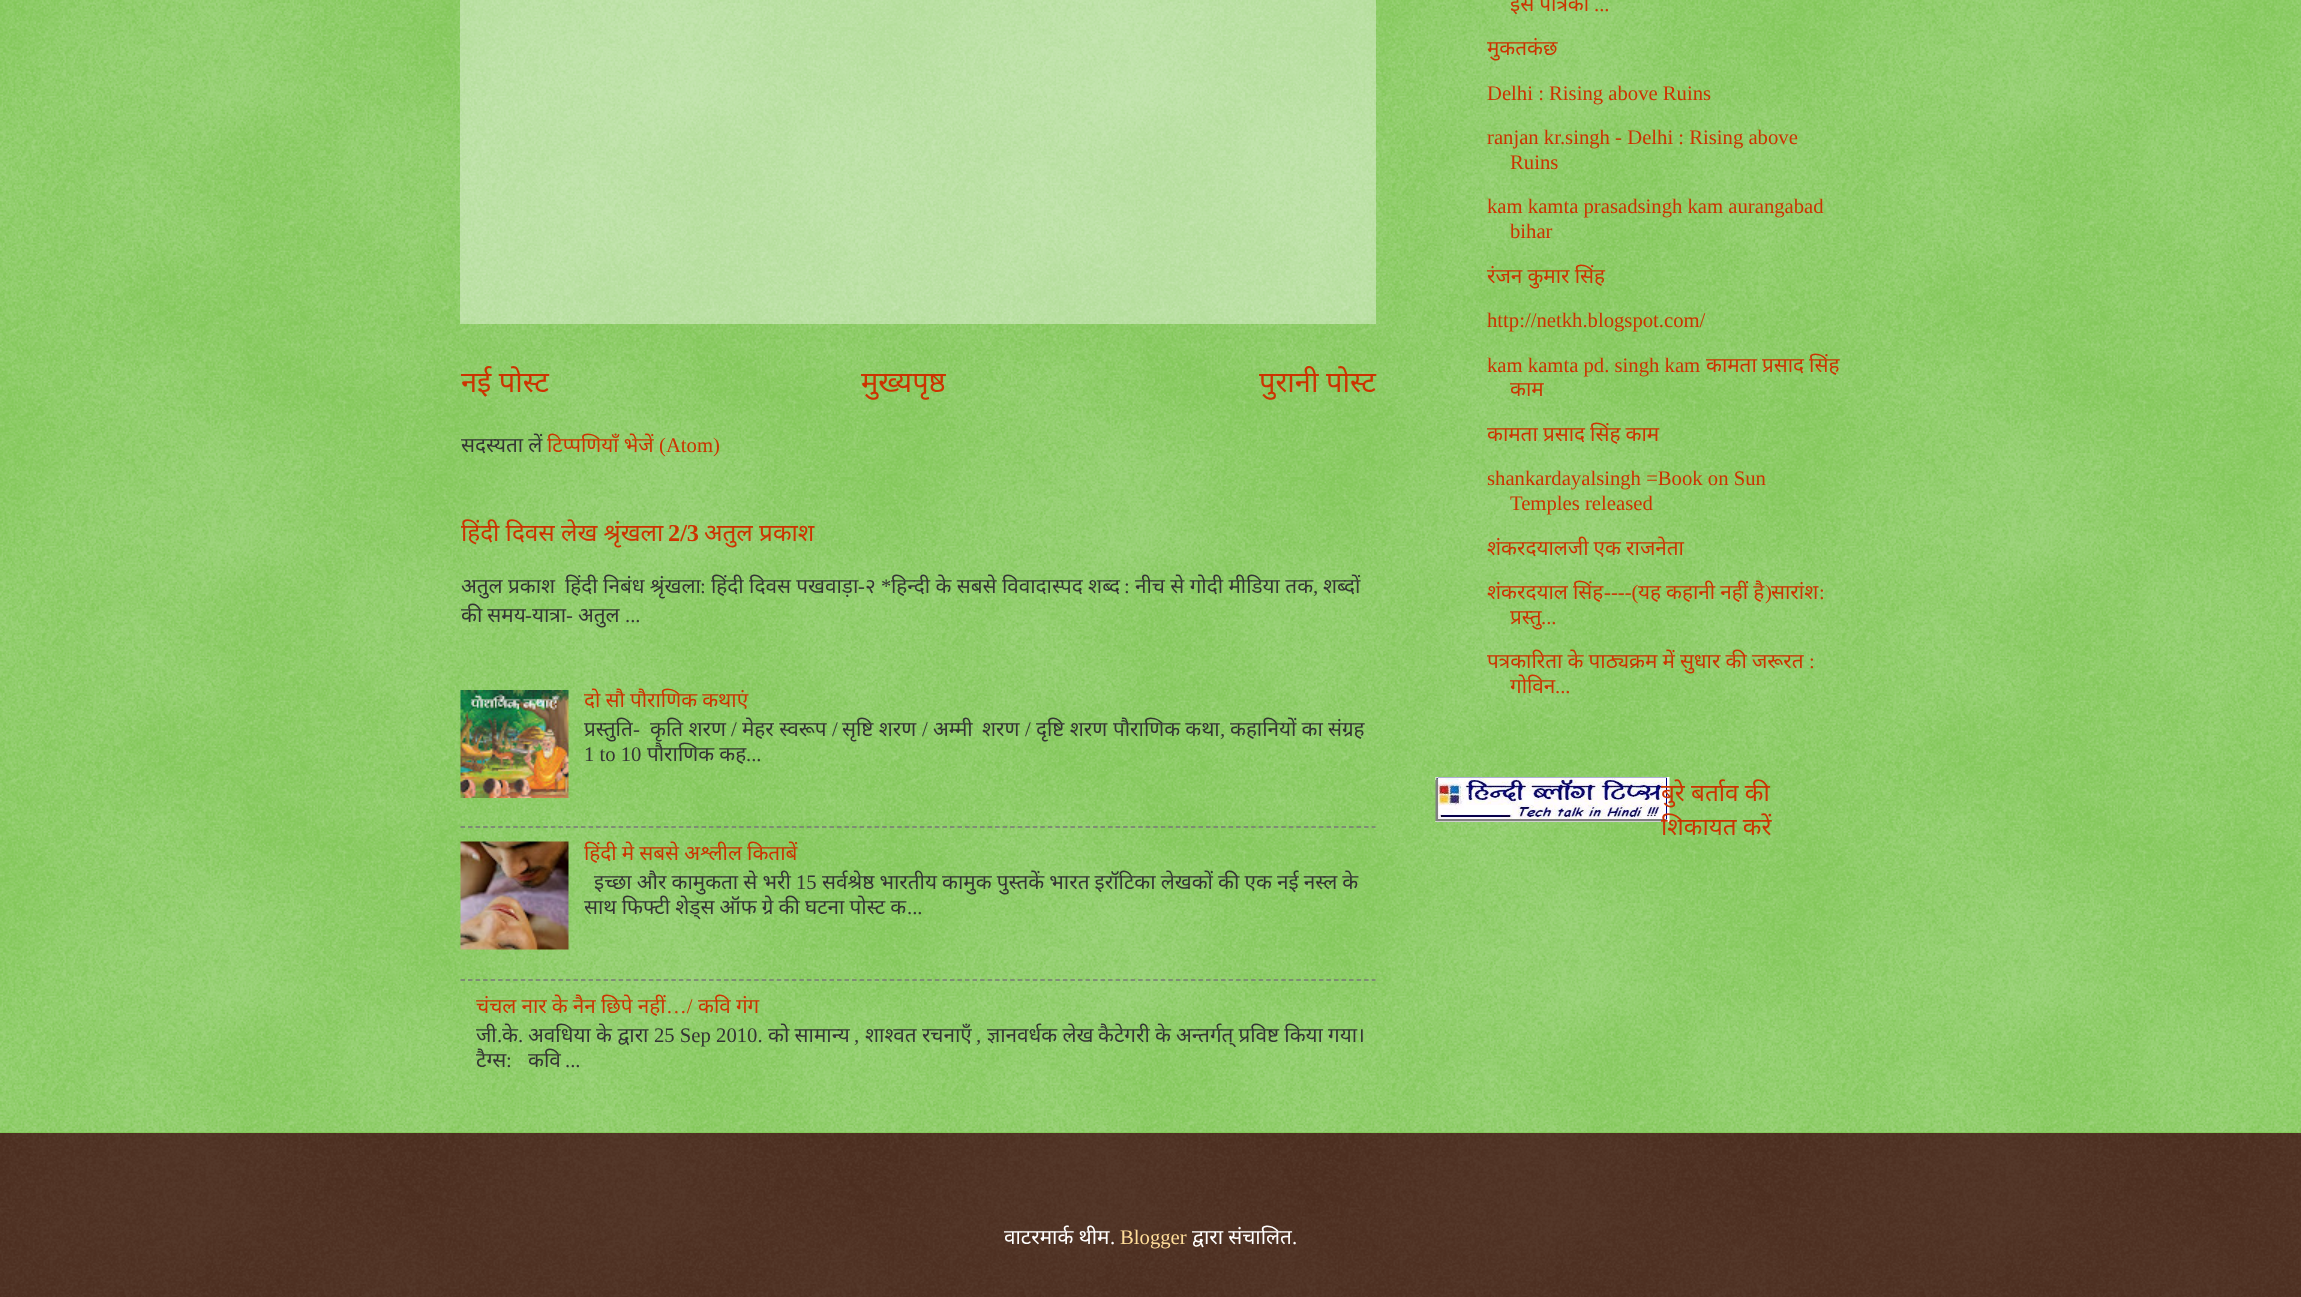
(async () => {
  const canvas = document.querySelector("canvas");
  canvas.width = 2301;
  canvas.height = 1297;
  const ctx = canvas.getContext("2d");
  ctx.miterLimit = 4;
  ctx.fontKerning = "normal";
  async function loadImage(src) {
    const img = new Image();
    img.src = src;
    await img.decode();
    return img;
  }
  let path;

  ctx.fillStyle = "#66bb33";
  ctx.fillRect(0, 0, 2301, 1297);
  ctx.drawImage(await loadImage("img/1.png"), 0, 0, 2301, 1133);
  ctx.fillStyle = "rgba(255, 255, 255, 0.4)";
  ctx.fillRect(460, 0, 916, 324);
  ctx.drawImage(await loadImage("img/2.png"), 460, 690, 109, 108);
  path = new Path2D("M460.5 827H1375.5");
  ctx.strokeStyle = "#777777";
  ctx.lineWidth = 1.5;
  ctx.setLineDash([4.5, 3.03]);
  ctx.stroke(path);
  ctx.drawImage(await loadImage("img/3.png"), 460, 841, 109, 109);
  path = new Path2D("M460.5 980H1375.5");
  ctx.stroke(path);
  ctx.drawImage(await loadImage("img/4.png"), 1435, 777, 235, 45);
  ctx.fillStyle = "#331100";
  ctx.fillRect(0, 1133, 2301, 164);
  ctx.drawImage(await loadImage("img/5.png"), 0, 1132, 2301, 165);
  ctx.font = "29px Noto Sans";
  ctx.fillStyle = "#cc3300";
  for (const [text, x, y] of [
    ["नई पोस्ट", 461, 392],
    ["मुख्यपृष्ठ", 861, 392],
    ["पुरानी पोस्ट", 1259, 392],
  ]) {
    ctx.fillText(text, x, y);
  }
  ctx.wordSpacing = "-0.25px";
  ctx.font = "20.7px Noto Sans";
  ctx.fillStyle = "#333333";
  ctx.fillText("सदस्यता लें", 461, 452);
  ctx.fillStyle = "#cc3300";
  ctx.fillText("टिप्पणियाँ भेजें", 547, 452);
  ctx.wordSpacing = "0px";
  ctx.font = "20.7px Liberation Serif";
  ctx.fillText("(Atom)", 659, 452);
  ctx.font = "24.25px Noto Sans";
  ctx.fillText("हिंदी दिवस लेख श्रृंखला", 461, 541);
  ctx.font = "bold 24.25px Liberation Serif";
  ctx.fillText("2/3", 668, 541);
  ctx.font = "24.25px Noto Sans";
  ctx.fillText("अतुल प्रकाश", 704, 541);
  ctx.font = "20.7px Noto Sans";
  ctx.fillStyle = "#333333";
  ctx.fillText("अतुल प्रकाश", 461, 593);
  ctx.fillText("हिंदी निबंध श्रृंखला", 565, 593);
  ctx.font = "20.7px Liberation Serif";
  ctx.fillText(":", 700, 593);
  ctx.font = "20.7px Noto Sans";
  ctx.fillText("हिंदी दिवस पखवाड़ा", 711, 593);
  ctx.font = "20.7px Liberation Serif";
  ctx.fillText("-", 858, 593);
  ctx.font = "20.7px Noto Sans";
  ctx.fillText("२", 865, 593);
  ctx.font = "20.7px Liberation Serif";
  ctx.fillText("*", 881, 593);
  ctx.font = "20.7px Noto Sans";
  ctx.fillText("हिन्दी के सबसे विवादास्पद शब्द", 891, 593);
  ctx.font = "20.7px Liberation Serif";
  ctx.fillText(":", 1124, 593);
  ctx.font = "20.7px Noto Sans";
  ctx.fillText("नीच से गोदी मीडिया तक", 1135, 593);
  ctx.fillText("शब्दों", 1323, 593);
  ctx.font = "20.7px Liberation Serif";
  ctx.fillText(",", 1313, 593);
  ctx.wordSpacing = "-0.25px";
  ctx.font = "20.7px Noto Sans";
  ctx.fillText("की समय", 461, 622);
  ctx.wordSpacing = "0px";
  ctx.font = "20.7px Liberation Serif";
  ctx.fillText("-", 525, 622);
  ctx.font = "20.7px Noto Sans";
  ctx.fillText("यात्रा", 532, 622);
  ctx.font = "20.7px Liberation Serif";
  ctx.fillText("-", 566, 622);
  ctx.font = "20.7px Noto Sans";
  ctx.fillText("अतुल", 578, 622);
  ctx.font = "20.7px Liberation Serif";
  ctx.fillText("...", 625, 622);
  ctx.wordSpacing = "-0.25px";
  ctx.font = "20.7px Noto Sans";
  ctx.fillStyle = "#cc3300";
  ctx.fillText("दो सौ पौराणिक कथाएं", 584, 707);
  ctx.wordSpacing = "0px";
  ctx.fillStyle = "#333333";
  for (const [text, x, y] of [
    ["प्रस्तुति", 584, 736],
    ["कृति शरण", 650, 736],
    ["अम्मी", 933, 736],
    ["दृष्टि शरण", 1036, 736],
  ]) {
    ctx.fillText(text, x, y);
  }
  ctx.wordSpacing = "-0.25px";
  ctx.fillText("पौराणिक कथा", 1113, 736);
  ctx.fillText("कहानियों का संग्रह", 1230, 736);
  ctx.wordSpacing = "0px";
  ctx.font = "20.7px Liberation Serif";
  ctx.fillText("-", 633, 736);
  ctx.fillText("/", 731, 736);
  ctx.font = "20.7px Noto Sans";
  ctx.fillText("मेहर स्वरूप", 742, 736);
  ctx.font = "20.7px Liberation Serif";
  ctx.fillText("/", 832, 736);
  ctx.font = "20.7px Noto Sans";
  ctx.fillText("सृष्टि शरण", 842, 736);
  ctx.font = "20.7px Liberation Serif";
  ctx.fillText("/", 922, 736);
  ctx.font = "20.7px Noto Sans";
  ctx.fillText("शरण", 982, 736);
  ctx.font = "20.7px Liberation Serif";
  for (const [text, x, y] of [
    ["/", 1025, 736],
    [",", 1220, 736],
    ["1 to 10", 584, 761],
  ]) {
    ctx.fillText(text, x, y);
  }
  ctx.wordSpacing = "-0.25px";
  ctx.font = "20.7px Noto Sans";
  ctx.fillText("पौराणिक कह", 647, 761);
  ctx.wordSpacing = "0px";
  ctx.font = "20.7px Liberation Serif";
  ctx.fillText("...", 746, 761);
  ctx.wordSpacing = "-0.25px";
  ctx.font = "20.7px Noto Sans";
  ctx.fillStyle = "#cc3300";
  ctx.fillText("हिंदी मे सबसे अश्लील किताबें", 584, 860);
  ctx.fillStyle = "#333333";
  ctx.fillText("इच्छा और कामुकता से भरी", 594, 889);
  ctx.wordSpacing = "0px";
  ctx.font = "20.7px Liberation Serif";
  ctx.fillText("15", 796, 889);
  ctx.wordSpacing = "-0.25px";
  ctx.font = "20.7px Noto Sans";
  ctx.fillText("सर्वश्रेष्ठ भारतीय कामुक पुस्तकें भारत इरॉटिका लेखकों की एक नई नस्ल के", 822, 889);
  ctx.fillText("साथ फिफ्टी शेड्स ऑफ ग्रे की घटना पोस्ट क", 584, 914);
  ctx.wordSpacing = "0px";
  ctx.font = "20.7px Liberation Serif";
  ctx.fillText("...", 907, 914);
  ctx.wordSpacing = "-0.25px";
  ctx.font = "20.7px Noto Sans";
  ctx.fillStyle = "#cc3300";
  ctx.fillText("चंचल नार के नैन छिपे नहीं", 476, 1013);
  ctx.wordSpacing = "0px";
  ctx.font = "20.7px Liberation Serif";
  ctx.fillText("…/", 666, 1013);
  ctx.wordSpacing = "-0.25px";
  ctx.font = "20.7px Noto Sans";
  ctx.fillText("कवि गंग", 698, 1013);
  ctx.wordSpacing = "0px";
  ctx.fillStyle = "#333333";
  ctx.fillText("जी", 476, 1042);
  ctx.fillText("अवधिया के द्वारा", 528, 1042);
  ctx.font = "20.7px Liberation Serif";
  ctx.fillText("25 Sep 2010.", 654, 1042);
  ctx.font = "20.7px Noto Sans";
  for (const [text, x, y] of [
    ["को सामान्य", 768, 1042],
    ["शाश्वत रचनाएँ", 865, 1042],
    ["ज्ञानवर्धक लेख", 987, 1042],
  ]) {
    ctx.fillText(text, x, y);
  }
  ctx.wordSpacing = "-0.25px";
  ctx.fillText("कैटेगरी के अन्तर्गत् प्रविष्ट किया गया।", 1098, 1042);
  ctx.wordSpacing = "0px";
  ctx.font = "20.7px Liberation Serif";
  ctx.fillText(".", 497, 1042);
  ctx.font = "20.7px Noto Sans";
  ctx.fillText("के", 502, 1042);
  ctx.font = "20.7px Liberation Serif";
  for (const [text, x, y] of [
    [".", 518, 1042],
    [",", 854, 1042],
    [",", 976, 1042],
  ]) {
    ctx.fillText(text, x, y);
  }
  ctx.font = "20.7px Noto Sans";
  ctx.fillText("टैग्स", 476, 1067);
  ctx.font = "20.7px Liberation Serif";
  ctx.fillText(":", 506, 1067);
  ctx.font = "20.7px Noto Sans";
  ctx.fillText("कवि", 528, 1067);
  ctx.font = "20.7px Liberation Serif";
  ctx.fillText("...", 565, 1067);
  ctx.wordSpacing = "-0.25px";
  ctx.font = "20.7px Noto Sans";
  ctx.fillStyle = "#cc3300";
  ctx.fillText("इस पत्रिका", 1510, 11);
  ctx.wordSpacing = "0px";
  ctx.font = "20.7px Liberation Serif";
  ctx.fillText("...", 1594, 11);
  ctx.font = "20.7px Noto Sans";
  ctx.fillText("मुकतकंछ", 1487, 55);
  ctx.font = "20.7px Liberation Serif";
  for (const [text, x, y] of [
    ["Delhi : Rising above Ruins", 1487, 100],
    ["ranjan kr.singh - Delhi : Rising above", 1487, 144],
    ["Ruins", 1510, 169],
    ["kam kamta prasadsingh kam aurangabad", 1487, 213],
    ["bihar", 1510, 238],
  ]) {
    ctx.fillText(text, x, y);
  }
  ctx.wordSpacing = "-0.25px";
  ctx.font = "20.7px Noto Sans";
  ctx.fillText("रंजन कुमार सिंह", 1487, 283);
  ctx.wordSpacing = "0px";
  ctx.font = "20.7px Liberation Serif";
  ctx.fillText("http://netkh.blogspot.com/", 1487, 327);
  ctx.fillText("kam kamta pd. singh kam", 1487, 372);
  ctx.wordSpacing = "-0.25px";
  ctx.font = "20.7px Noto Sans";
  ctx.fillText("कामता प्रसाद सिंह", 1706, 372);
  ctx.wordSpacing = "0px";
  ctx.fillText("काम", 1510, 396);
  ctx.wordSpacing = "-0.25px";
  ctx.fillText("कामता प्रसाद सिंह काम", 1487, 441);
  ctx.wordSpacing = "0px";
  ctx.font = "20.7px Liberation Serif";
  ctx.fillText("shankardayalsingh =Book on Sun", 1487, 485);
  ctx.fillText("Temples released", 1510, 510);
  ctx.wordSpacing = "-0.25px";
  ctx.font = "20.7px Noto Sans";
  ctx.fillText("शंकरदयालजी एक राजनेता", 1487, 555);
  ctx.fillText("शंकरदयाल सिंह", 1487, 599);
  ctx.wordSpacing = "0px";
  ctx.font = "20.7px Liberation Serif";
  ctx.fillText("----(", 1604, 599);
  ctx.wordSpacing = "-0.25px";
  ctx.font = "20.7px Noto Sans";
  ctx.fillText("यह कहानी नहीं है", 1638, 599);
  ctx.wordSpacing = "0px";
  ctx.font = "20.7px Liberation Serif";
  ctx.fillText(")", 1765, 599);
  ctx.font = "20.7px Noto Sans";
  ctx.fillText("सारांश", 1771, 599);
  ctx.font = "20.7px Liberation Serif";
  ctx.fillText(":", 1819, 599);
  ctx.font = "20.7px Noto Sans";
  ctx.fillText("प्रस्तु", 1510, 624);
  ctx.font = "20.7px Liberation Serif";
  ctx.fillText("...", 1541, 624);
  ctx.wordSpacing = "-0.25px";
  ctx.font = "20.7px Noto Sans";
  ctx.fillText("पत्रकारिता के पाठ्यक्रम में सुधार की जरूरत", 1487, 668);
  ctx.wordSpacing = "0px";
  ctx.font = "20.7px Liberation Serif";
  ctx.fillText(":", 1809, 668);
  ctx.font = "20.7px Noto Sans";
  ctx.fillText("गोविन", 1510, 693);
  ctx.font = "20.7px Liberation Serif";
  ctx.fillText("...", 1555, 693);
  ctx.font = "24.25px Noto Sans";
  ctx.fillText("बुरे बर्ताव की", 1661, 801);
  ctx.fillText("शिकायत करें", 1661, 835);
  ctx.wordSpacing = "-0.25px";
  ctx.font = "20.7px Noto Sans";
  ctx.fillStyle = "#ffffff";
  ctx.fillText("वाटरमार्क थीम", 1004, 1244);
  ctx.wordSpacing = "0px";
  ctx.font = "20.7px Liberation Serif";
  ctx.fillText(".", 1110, 1244);
  ctx.fillStyle = "#ffdd99";
  ctx.fillText("Blogger", 1120, 1244);
  ctx.wordSpacing = "-0.25px";
  ctx.font = "20.7px Noto Sans";
  ctx.fillStyle = "#ffffff";
  ctx.fillText("द्वारा संचालित", 1192, 1244);
  ctx.wordSpacing = "0px";
  ctx.font = "20.7px Liberation Serif";
  ctx.fillText(".", 1292, 1244);
})();
